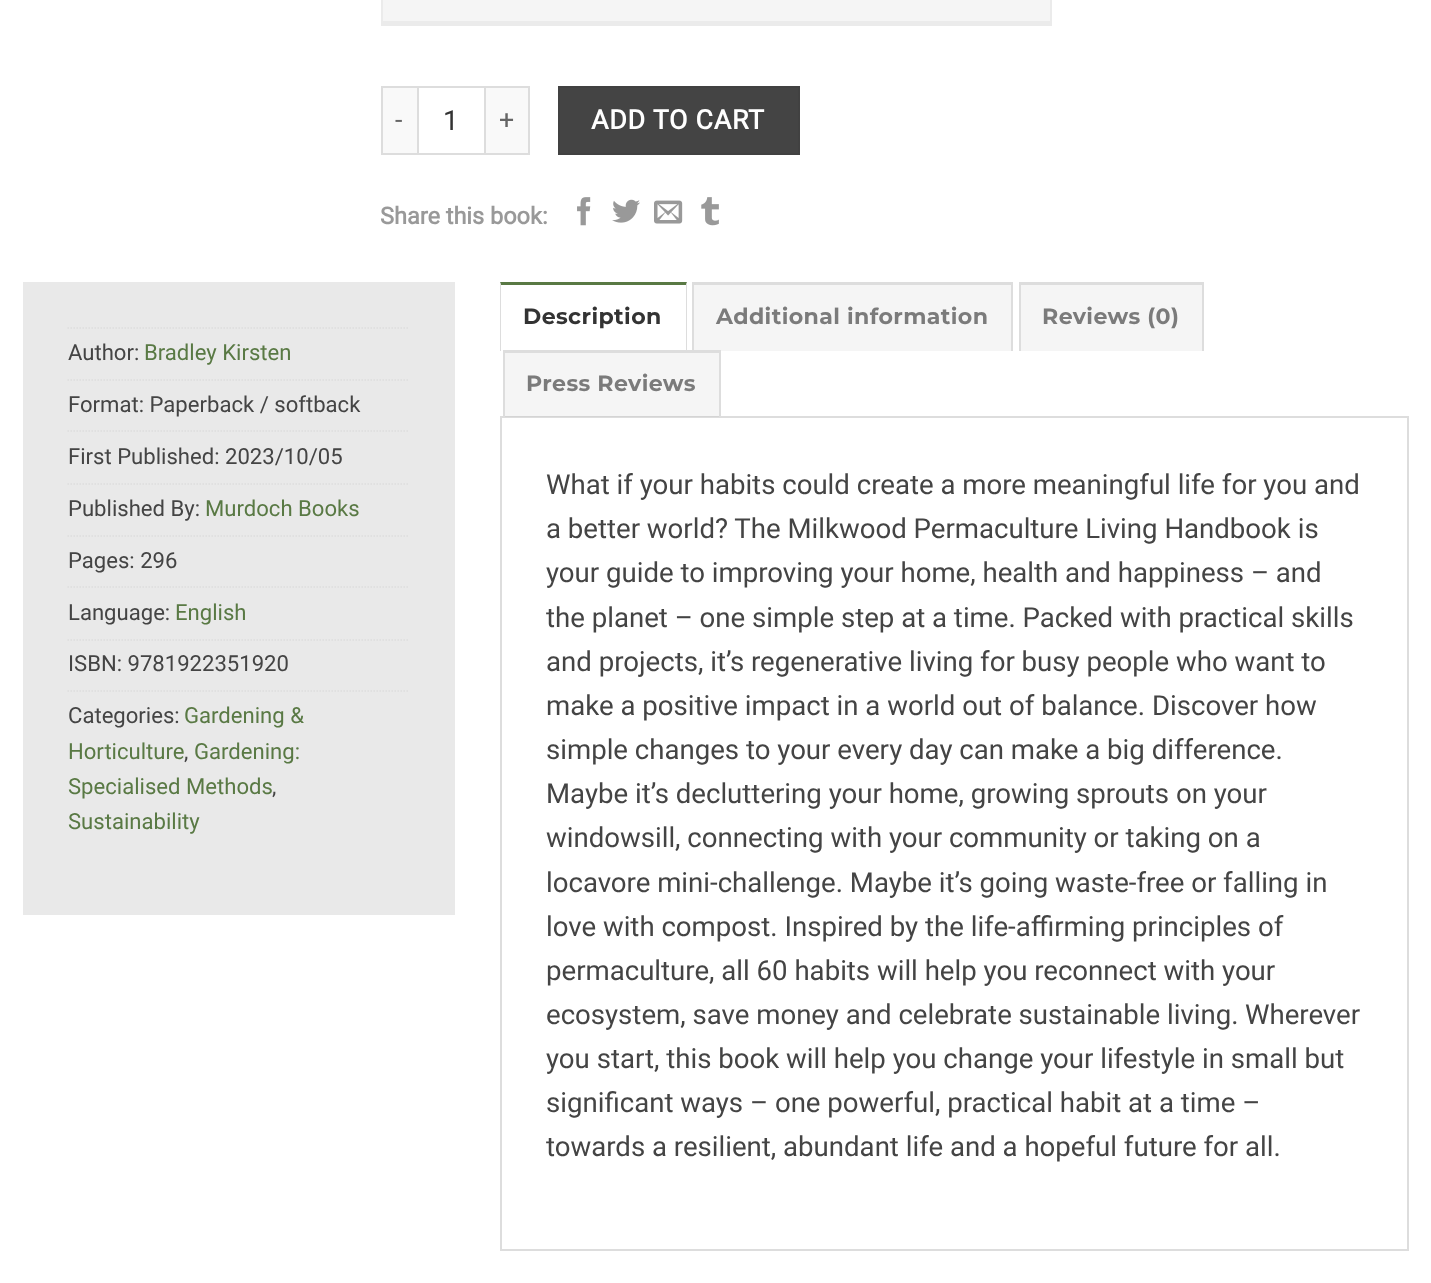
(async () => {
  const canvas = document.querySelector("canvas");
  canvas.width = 1431;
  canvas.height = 1283;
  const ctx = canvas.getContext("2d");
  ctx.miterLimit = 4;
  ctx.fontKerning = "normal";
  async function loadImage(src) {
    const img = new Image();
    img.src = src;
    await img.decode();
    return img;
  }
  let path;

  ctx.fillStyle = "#ffffff";
  ctx.fillRect(0, 0, 1431, 1283);
  for (const [x, y, w, h, color] of [
    [383, 0, 667, 21, "#f5f5f5"],
    [1050, 0, 2, 26, "#ebebeb"],
    [381, 21, 671, 5, "#ebebeb"],
    [381, 0, 2, 26, "#ebebeb"],
    [383, 88, 34, 65, "#f9f9f9"],
    [381, 86, 36, 2, "#dddddd"],
    [381, 153, 36, 2, "#dddddd"],
    [381, 86, 2, 69, "#dddddd"],
  ]) {
    ctx.fillStyle = color;
    ctx.fillRect(x, y, w, h);
  }
  ctx.strokeStyle = "#dddddd";
  ctx.lineWidth = 2;
  ctx.strokeRect(418, 87, 67, 67);
  for (const [x, y, w, h, color] of [
    [486, 88, 42, 65, "#f9f9f9"],
    [486, 86, 44, 2, "#dddddd"],
    [528, 86, 2, 69, "#dddddd"],
    [486, 153, 44, 2, "#dddddd"],
  ]) {
    ctx.fillStyle = color;
    ctx.fillRect(x, y, w, h);
  }
  ctx.fillStyle = "#444444";
  ctx.beginPath();
  ctx.rect(559, 87, 240, 67);
  ctx.fill();
  ctx.strokeStyle = "#414141";
  ctx.stroke();
  ctx.drawImage(await loadImage("img/1.png"), 577, 197, 14, 29);
  ctx.drawImage(await loadImage("img/2.png"), 612, 199, 28, 24);
  ctx.drawImage(await loadImage("img/3.png"), 654, 200, 29, 24);
  ctx.drawImage(await loadImage("img/4.png"), 701, 197, 18, 29);
  ctx.fillStyle = "#e9e9e9";
  ctx.fillRect(23, 282, 432, 633);
  path = new Path2D("M67.5 328H409.5");
  ctx.strokeStyle = "#dddddd";
  ctx.lineWidth = 1.5;
  ctx.setLineDash([1.5, 1.5]);
  ctx.stroke(path);
  path = new Path2D("M67.5 380H409.5");
  ctx.stroke(path);
  path = new Path2D("M67.5 431H409.5");
  ctx.stroke(path);
  path = new Path2D("M67.5 484H409.5");
  ctx.stroke(path);
  path = new Path2D("M67.5 536H409.5");
  ctx.stroke(path);
  path = new Path2D("M67.5 587H409.5");
  ctx.stroke(path);
  path = new Path2D("M67.5 640H409.5");
  ctx.stroke(path);
  path = new Path2D("M67.5 691H409.5");
  ctx.stroke(path);
  ctx.fillStyle = "#597944";
  path = new Path2D("M500 282H687L686 285H501Z");
  ctx.fill(path);
  ctx.fillStyle = "#dddddd";
  path = new Path2D("M687 282V351H686V285Z");
  ctx.fill(path);
  path = new Path2D("M500 351V282L501 285V351Z");
  ctx.fill(path);
  for (const [x, y, w, h, color] of [
    [694, 285, 317, 66, "#f5f5f5"],
    [692, 282, 321, 3, "#dddddd"],
    [1011, 282, 2, 69, "#dddddd"],
    [692, 282, 2, 69, "#dddddd"],
    [1021, 285, 181, 66, "#f5f5f5"],
    [1019, 282, 184, 3, "#dddddd"],
    [1202, 282, 2, 69, "#dddddd"],
    [1019, 282, 2, 69, "#dddddd"],
  ]) {
    ctx.fillStyle = color;
    ctx.fillRect(x, y, w, h);
  }
  ctx.lineWidth = 2;
  ctx.setLineDash([]);
  ctx.strokeRect(501, 417, 907, 833);
  for (const [x, y, w, h, color] of [
    [505, 353, 214, 64, "rgba(0, 0, 0, 0.04)"],
    [503, 350, 217, 3, "#dddddd"],
    [719, 350, 2, 67, "#dddddd"],
    [503, 350, 2, 67, "#dddddd"],
  ]) {
    ctx.fillStyle = color;
    ctx.fillRect(x, y, w, h);
  }
  ctx.letterSpacing = "0.75px";
  ctx.font = "26.75px Roboto";
  ctx.fillStyle = "#666666";
  ctx.fillText("-", 395, 129);
  ctx.letterSpacing = "0px";
  ctx.font = "27.6px Roboto";
  ctx.fillStyle = "#333333";
  ctx.fillText("1", 443, 130);
  ctx.letterSpacing = "0.75px";
  ctx.font = "26.75px Roboto";
  ctx.fillStyle = "#666666";
  ctx.fillText("+", 499, 129);
  ctx.font = "bold 26.75px Roboto";
  ctx.fillStyle = "#ffffff";
  ctx.fillText("ADD TO CART", 591, 129);
  ctx.letterSpacing = "0px";
  ctx.font = "bold 23.5px Roboto";
  ctx.fillStyle = "#999999";
  ctx.fillText("Share this book:", 380, 224);
  ctx.font = "22.1px Roboto";
  ctx.fillStyle = "#444444";
  ctx.fillText("Author:", 68, 360);
  ctx.fillStyle = "#597944";
  ctx.fillText("Bradley Kirsten", 144, 360);
  ctx.fillStyle = "#444444";
  for (const [text, x, y] of [
    ["Format: Paperback / softback", 68, 412],
    ["First Published: 2023/10/05", 68, 464],
    ["Published By:", 68, 516],
  ]) {
    ctx.fillText(text, x, y);
  }
  ctx.fillStyle = "#597944";
  ctx.fillText("Murdoch Books", 205, 516);
  ctx.fillStyle = "#444444";
  ctx.fillText("Pages: 296", 68, 568);
  ctx.fillText("Language:", 68, 620);
  ctx.fillStyle = "#597944";
  ctx.fillText("English", 175, 620);
  ctx.fillStyle = "#444444";
  ctx.fillText("ISBN: 9781922351920", 68, 671);
  ctx.fillText("Categories:", 68, 723);
  ctx.fillStyle = "#597944";
  ctx.fillText("Gardening &", 184, 723);
  ctx.fillText("Horticulture", 68, 759);
  ctx.fillStyle = "#444444";
  ctx.fillText(",", 184, 759);
  ctx.fillStyle = "#597944";
  ctx.fillText("Gardening:", 194, 759);
  ctx.fillText("Specialised Methods", 68, 794);
  ctx.fillStyle = "#444444";
  ctx.fillText(",", 272, 794);
  ctx.fillStyle = "#597944";
  ctx.fillText("Sustainability", 68, 829);
  ctx.letterSpacing = "0.4px";
  ctx.font = "100 22.1px Montserrat";
  ctx.fillStyle = "#333333";
  ctx.fillText("Description", 523, 324);
  ctx.fillStyle = "#7b7b7b";
  for (const [text, x, y] of [
    ["Additional information", 716, 324],
    ["Reviews (0)", 1042, 324],
    ["Press Reviews", 526, 391],
  ]) {
    ctx.fillText(text, x, y);
  }
  ctx.letterSpacing = "0px";
  ctx.font = "27.6px Roboto";
  ctx.fillStyle = "#444444";
  for (const [text, x, y] of [
    ["What if your habits could create a more meaningful life for you and", 546, 494],
    ["a better world? The Milkwood Permaculture Living Handbook is", 546, 538],
    ["your guide to improving your home, health and happiness – and", 546, 582],
    ["the planet – one simple step at a time. Packed with practical skills", 546, 627],
    ["and projects, it’s regenerative living for busy people who want to", 546, 671],
    ["make a positive impact in a world out of balance.", 546, 715],
    ["Discover how", 1152, 715],
    ["simple changes to your every day can make a big difference.", 546, 759],
    ["Maybe it’s decluttering your home, growing sprouts on your", 546, 803],
    ["windowsill, connecting with your community or taking on a", 546, 847],
    ["locavore mini-challenge. Maybe it’s going waste-free or falling in", 546, 892],
    ["love with compost. Inspired by the life-affirming principles of", 546, 936],
    ["permaculture, all 60 habits will help you reconnect with your", 546, 980],
    ["ecosystem, save money and celebrate sustainable living.", 546, 1024],
    ["Wherever", 1245, 1024],
    ["you start, this book will help you change your lifestyle in small but", 546, 1068],
    ["significant ways – one powerful, practical habit at a time –", 546, 1112],
    ["towards a resilient, abundant life and a hopeful future for all.", 546, 1156],
  ]) {
    ctx.fillText(text, x, y);
  }
})();
